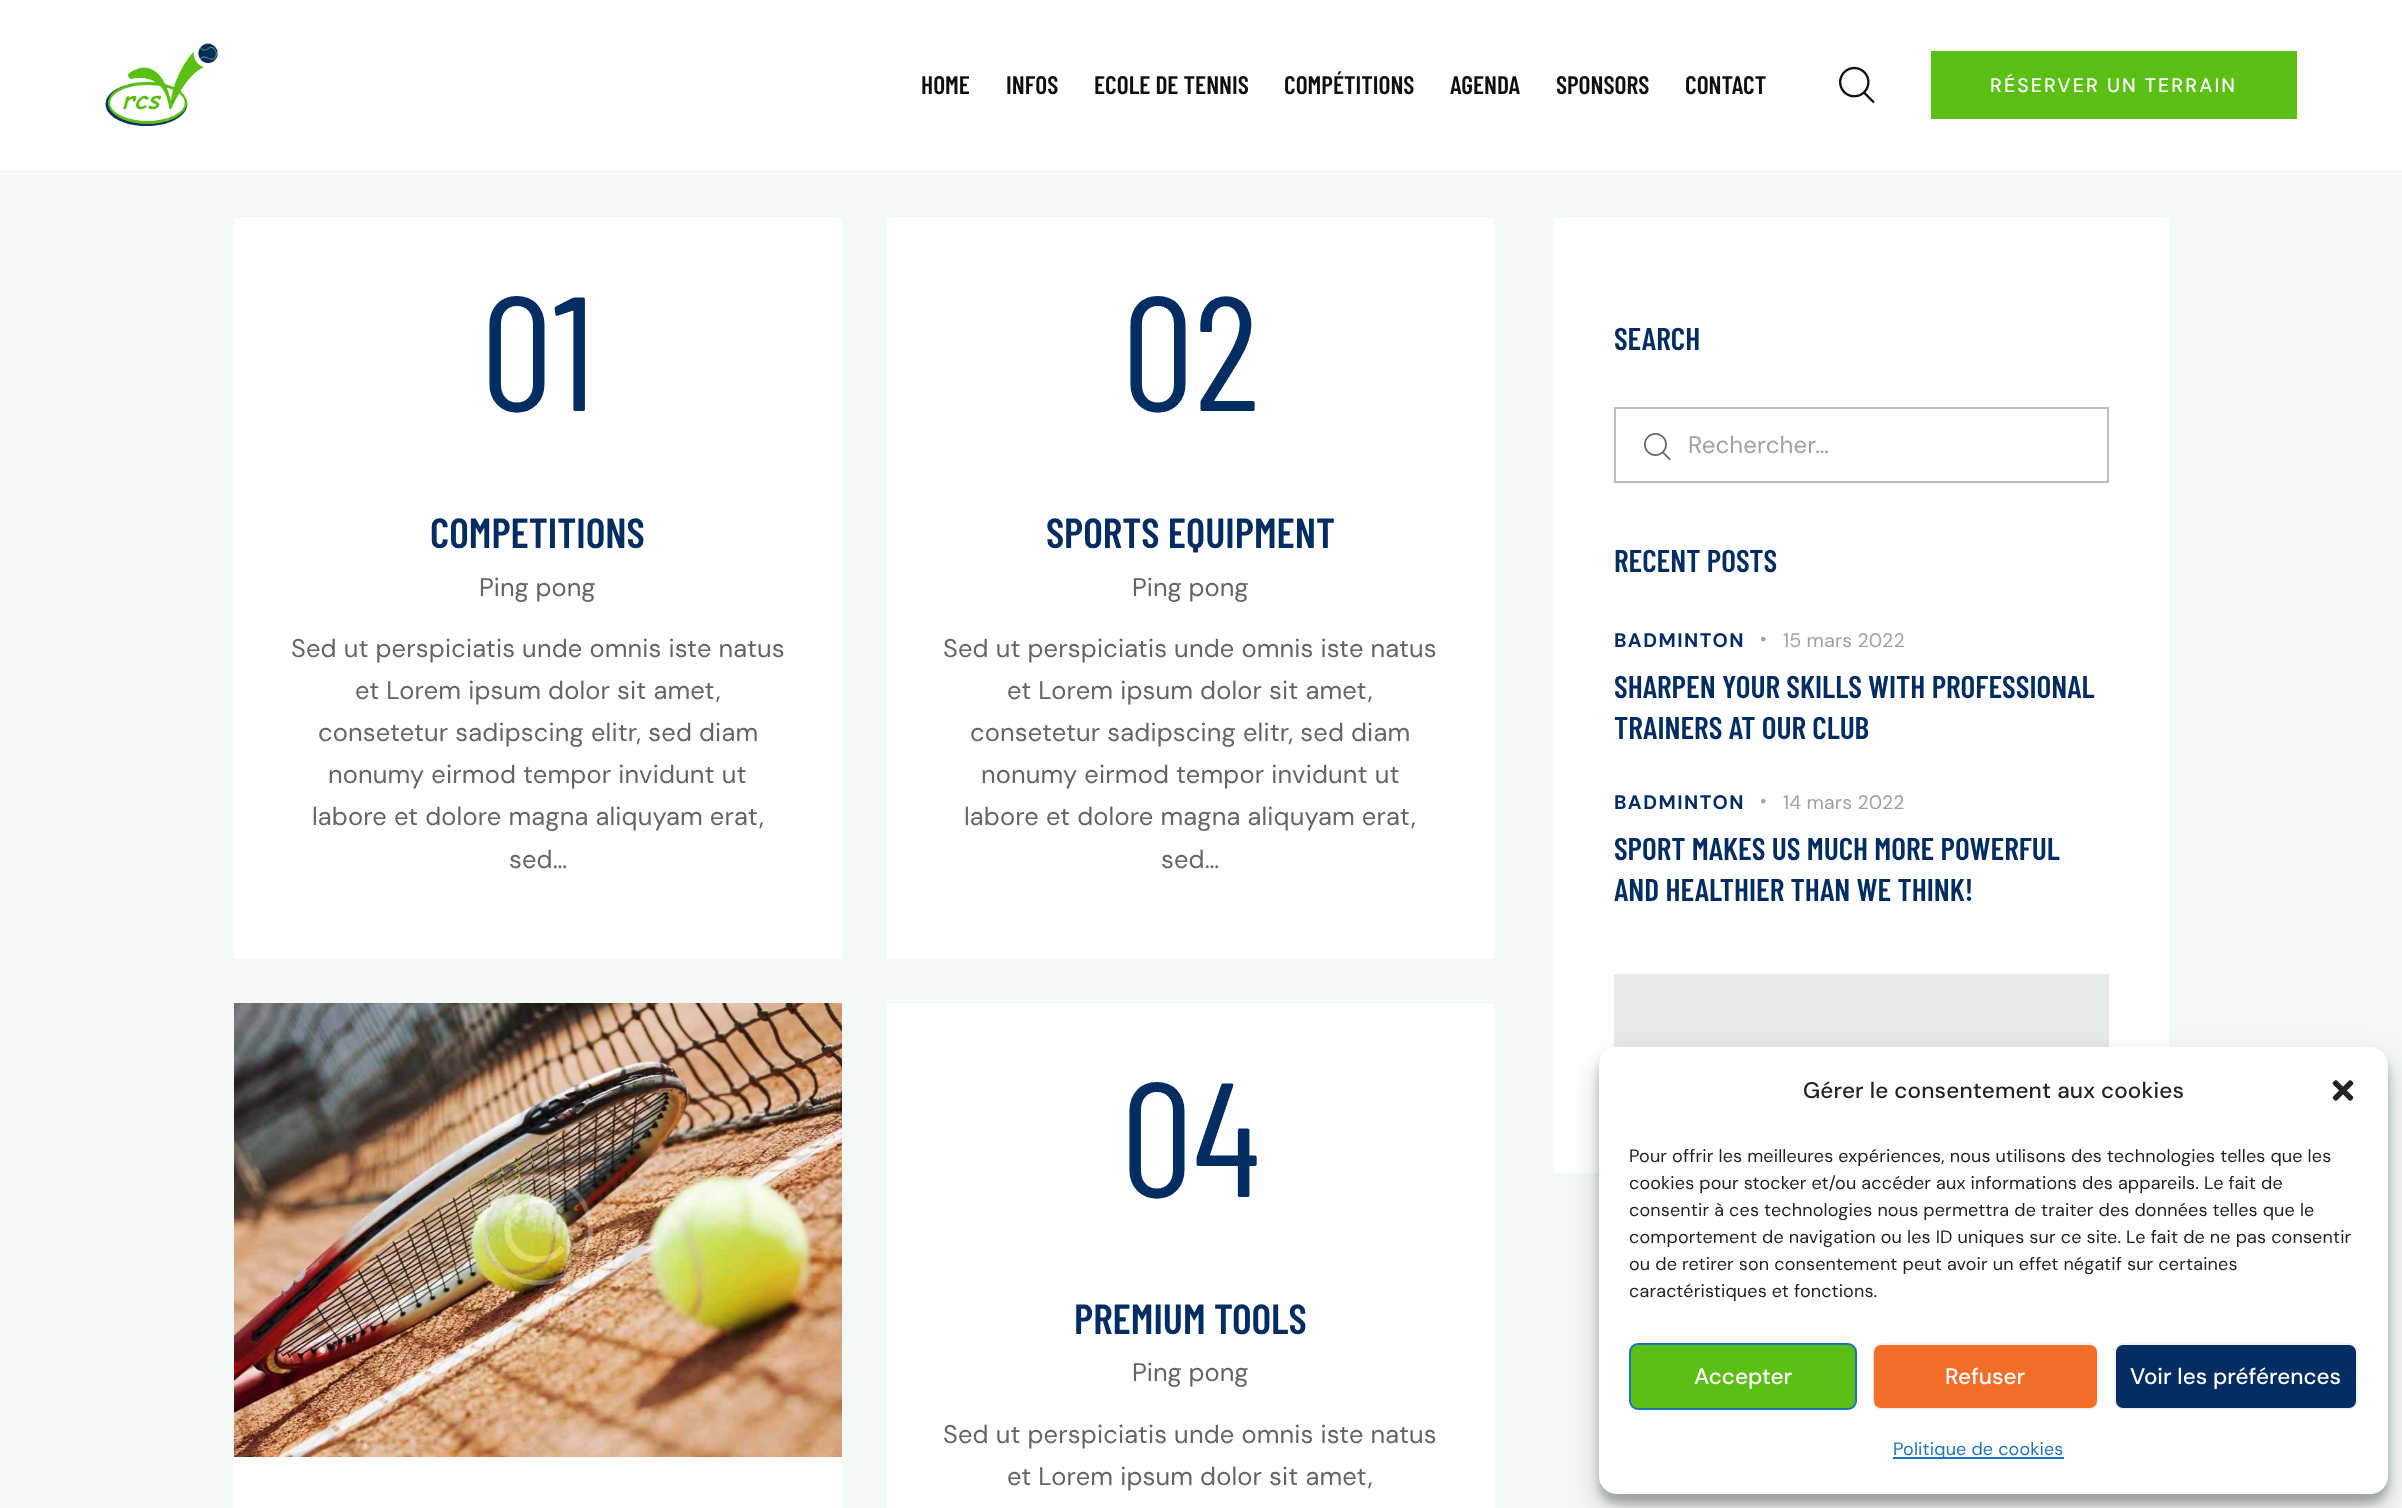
(async () => {
  const canvas = document.querySelector("canvas");
  canvas.width = 2402;
  canvas.height = 1508;
  const ctx = canvas.getContext("2d");
  ctx.miterLimit = 4;
  ctx.fontKerning = "normal";
  async function loadImage(src) {
    const img = new Image();
    img.src = src;
    await img.decode();
    return img;
  }

  ctx.fillStyle = "#f3f8f9";
  ctx.fillRect(0, 0, 2402, 1508);
  ctx.fillStyle = "#ffffff";
  ctx.fillRect(0, 0, 2402, 170);
  ctx.drawImage(await loadImage("img/1.png"), 105, 43, 113, 83);
  ctx.drawImage(await loadImage("img/2.png"), 1839, 66, 36, 37);
  for (const [x, y, w, h, color] of [
    [1931, 51, 366, 68, "#5bbf14"],
    [234, 218, 608, 741, "#ffffff"],
    [887, 218, 607, 741, "#ffffff"],
    [234, 1457, 608, 51, "#ffffff"],
  ]) {
    ctx.fillStyle = color;
    ctx.fillRect(x, y, w, h);
  }
  ctx.drawImage(await loadImage("img/3.png"), 234, 1003, 608, 454);
  ctx.fillRect(887, 1004, 607, 504);
  ctx.fillRect(1554, 218, 615, 955);
  ctx.strokeStyle = "#bcbfbf";
  ctx.lineWidth = 2;
  ctx.strokeRect(1615, 408, 493, 74);
  ctx.drawImage(await loadImage("img/4.png"), 1644, 433, 27, 27);
  ctx.drawImage(await loadImage("img/5.png"), 1761, 636, 5, 6);
  ctx.drawImage(await loadImage("img/5.png"), 1761, 798, 5, 6);
  ctx.fillStyle = "#e4eaeb";
  ctx.fillRect(1614, 974, 495, 74);
  ctx.fillStyle = "rgba(0, 0, 0, 0.23)";
  ctx.filter = "blur(4.5px)";
  ctx.beginPath();
  ctx.roundRect(1599, 1056, 789, 447, 18);
  ctx.fill();
  ctx.filter = "none";
  ctx.fillStyle = "rgba(0, 0, 0, 0.19)";
  ctx.filter = "blur(15px)";
  ctx.beginPath();
  ctx.roundRect(1599, 1062, 789, 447, 18);
  ctx.fill();
  ctx.filter = "none";
  ctx.fillStyle = "#ffffff";
  ctx.beginPath();
  ctx.roundRect(1599, 1047, 789, 447, 18);
  ctx.fill();
  ctx.drawImage(await loadImage("img/6.png"), 2332, 1080, 22, 21);
  ctx.fillStyle = "#5bbf14";
  ctx.beginPath();
  ctx.roundRect(1630, 1344, 226, 65, 8);
  ctx.fill();
  ctx.strokeStyle = "#1e73be";
  ctx.stroke();
  ctx.fillStyle = "#f56e28";
  ctx.beginPath();
  ctx.roundRect(1873, 1344, 225, 65, 8);
  ctx.fill();
  ctx.strokeStyle = "#f2f2f2";
  ctx.stroke();
  ctx.fillStyle = "#022d63";
  ctx.beginPath();
  ctx.roundRect(2115, 1344, 242, 65, 8);
  ctx.fill();
  ctx.stroke();
  ctx.fillStyle = "#1e73be";
  ctx.fillRect(1893, 1457, 171, 2);
  ctx.font = "600 25.5px Barlow Condensed";
  ctx.fillStyle = "#0f0f0f";
  for (const [text, x, y] of [
    ["HOME", 921, 94],
    ["INFOS", 1006, 94],
    ["ECOLE DE TENNIS", 1094, 94],
    ["COMPÉTITIONS", 1284, 94],
    ["AGENDA", 1450, 94],
    ["SPONSORS", 1556, 94],
    ["CONTACT", 1685, 94],
  ]) {
    ctx.fillText(text, x, y);
  }
  ctx.letterSpacing = "2.1px";
  ctx.font = "500 19.5px DM Sans";
  ctx.fillStyle = "#ffffff";
  ctx.fillText("RÉSERVER UN TERRAIN", 1990, 92);
  ctx.letterSpacing = "0.15px";
  ctx.font = "162px Barlow Condensed";
  ctx.fillStyle = "#022d63";
  ctx.fillText("01", 481, 411);
  ctx.letterSpacing = "0px";
  ctx.font = "600 42px Barlow Condensed";
  ctx.fillText("COMPETITIONS", 430, 548);
  ctx.font = "25.5px DM Sans";
  ctx.fillStyle = "#656565";
  ctx.fillText("Ping pong", 479, 596);
  ctx.letterSpacing = "0.15px";
  for (const [text, x, y] of [
    ["Sed ut perspiciatis unde omnis iste natus", 291, 657],
    ["et Lorem ipsum dolor sit amet,", 355, 699],
    ["consetetur sadipscing elitr, sed diam", 318, 741],
    ["nonumy eirmod tempor invidunt ut", 328, 783],
    ["labore et dolore magna aliquyam erat,", 312, 825],
    ["sed…", 509, 868],
  ]) {
    ctx.fillText(text, x, y);
  }
  ctx.font = "162px Barlow Condensed";
  ctx.fillStyle = "#022d63";
  ctx.fillText("02", 1122, 411);
  ctx.letterSpacing = "0px";
  ctx.font = "600 42px Barlow Condensed";
  ctx.fillText("SPORTS EQUIPMENT", 1046, 548);
  ctx.font = "25.5px DM Sans";
  ctx.fillStyle = "#656565";
  ctx.fillText("Ping pong", 1132, 596);
  ctx.letterSpacing = "0.15px";
  for (const [text, x, y] of [
    ["Sed ut perspiciatis unde omnis iste natus", 943, 657],
    ["et Lorem ipsum dolor sit amet,", 1007, 699],
    ["consetetur sadipscing elitr, sed diam", 970, 741],
    ["nonumy eirmod tempor invidunt ut", 981, 783],
    ["labore et dolore magna aliquyam erat,", 964, 825],
    ["sed…", 1161, 868],
  ]) {
    ctx.fillText(text, x, y);
  }
  ctx.font = "162px Barlow Condensed";
  ctx.fillStyle = "#022d63";
  ctx.fillText("04", 1121, 1197);
  ctx.letterSpacing = "0px";
  ctx.font = "600 42px Barlow Condensed";
  ctx.fillText("PREMIUM TOOLS", 1074, 1334);
  ctx.font = "25.5px DM Sans";
  ctx.fillStyle = "#656565";
  ctx.fillText("Ping pong", 1132, 1381);
  ctx.letterSpacing = "0.15px";
  ctx.fillText("Sed ut perspiciatis unde omnis iste natus", 943, 1443);
  ctx.fillText("et Lorem ipsum dolor sit amet,", 1007, 1485);
  ctx.letterSpacing = "0px";
  ctx.font = "600 31.5px Barlow Condensed";
  ctx.fillStyle = "#022d63";
  ctx.fillText("SEARCH", 1614, 350);
  ctx.letterSpacing = "0.15px";
  ctx.font = "24px DM Sans";
  ctx.fillStyle = "#a1a1a1";
  ctx.fillText("Rechercher…", 1688, 453);
  ctx.letterSpacing = "0px";
  ctx.font = "600 31.5px Barlow Condensed";
  ctx.fillStyle = "#022d63";
  ctx.fillText("RECENT POSTS", 1614, 572);
  ctx.letterSpacing = "1.5px";
  ctx.font = "bold 19.5px DM Sans";
  ctx.fillText("BADMINTON", 1614, 647);
  ctx.letterSpacing = "0.15px";
  ctx.font = "19.5px DM Sans";
  ctx.fillStyle = "#a1a1a1";
  ctx.fillText("15 mars 2022", 1783, 647);
  ctx.letterSpacing = "0px";
  ctx.font = "600 31.5px Barlow Condensed";
  ctx.fillStyle = "#022d63";
  ctx.fillText("SHARPEN YOUR SKILLS WITH PROFESSIONAL", 1614, 698);
  ctx.fillText("TRAINERS AT OUR CLUB", 1614, 739);
  ctx.letterSpacing = "1.5px";
  ctx.font = "bold 19.5px DM Sans";
  ctx.fillText("BADMINTON", 1614, 809);
  ctx.letterSpacing = "0.15px";
  ctx.font = "19.5px DM Sans";
  ctx.fillStyle = "#a1a1a1";
  ctx.fillText("14 mars 2022", 1783, 809);
  ctx.letterSpacing = "0px";
  ctx.font = "600 31.5px Barlow Condensed";
  ctx.fillStyle = "#022d63";
  ctx.fillText("SPORT MAKES US MUCH MORE POWERFUL", 1614, 860);
  ctx.fillText("AND HEALTHIER THAN WE THINK!", 1614, 901);
  ctx.letterSpacing = "0.15px";
  ctx.font = "500 22.5px DM Sans";
  ctx.fillStyle = "#222222";
  ctx.fillText("Gérer le consentement aux cookies", 1803, 1098);
  ctx.font = "18px DM Sans";
  for (const [text, x, y] of [
    ["Pour offrir les meilleures expériences, nous utilisons des technologies telles que les", 1629, 1162],
    ["cookies pour stocker et/ou accéder aux informations des appareils. Le fait de", 1629, 1189],
    ["consentir à ces technologies nous permettra de traiter des données telles que le", 1629, 1216],
    ["comportement de navigation ou les ID uniques sur ce site. Le fait de ne pas consentir", 1629, 1243],
    ["ou de retirer son consentement peut avoir un effet négatif sur certaines", 1629, 1270],
    ["caractéristiques et fonctions.", 1629, 1297],
  ]) {
    ctx.fillText(text, x, y);
  }
  ctx.letterSpacing = "0px";
  ctx.font = "500 22.5px DM Sans";
  ctx.fillStyle = "#ffffff";
  for (const [text, x, y] of [
    ["Accepter", 1694, 1384],
    ["Refuser", 1945, 1384],
    ["Voir les préférences", 2130, 1384],
  ]) {
    ctx.fillText(text, x, y);
  }
  ctx.letterSpacing = "0.15px";
  ctx.font = "18px DM Sans";
  ctx.fillStyle = "#1e73be";
  ctx.fillText("Politique de cookies", 1893, 1455);
})();
